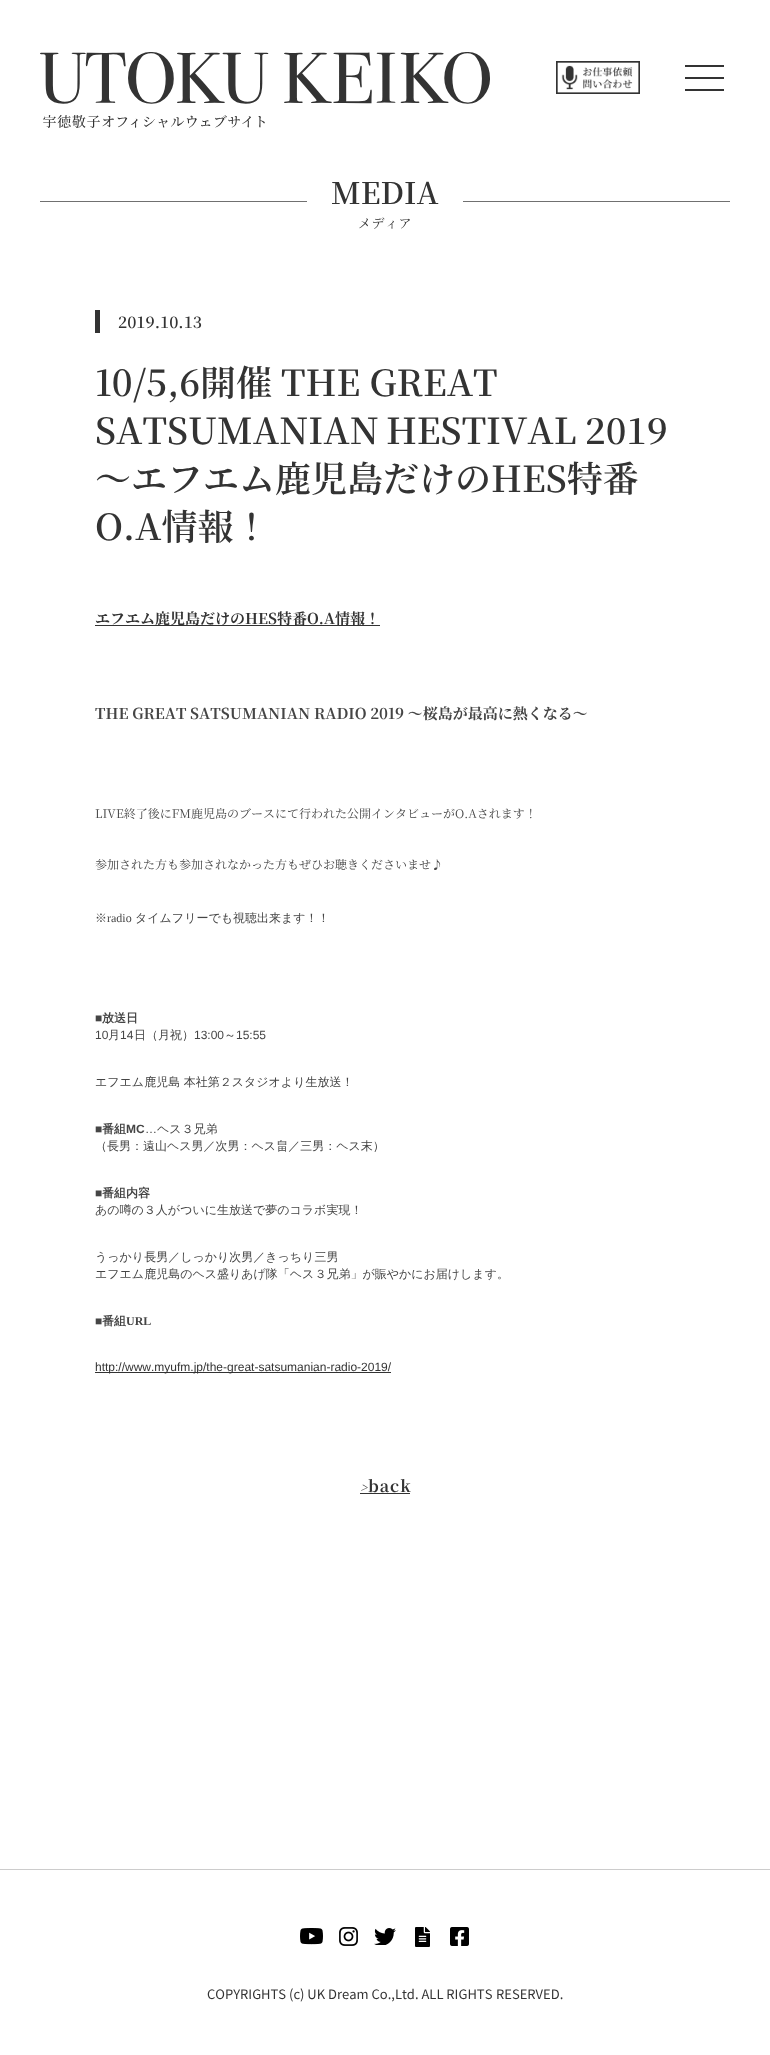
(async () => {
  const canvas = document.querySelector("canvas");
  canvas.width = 770;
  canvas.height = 2055;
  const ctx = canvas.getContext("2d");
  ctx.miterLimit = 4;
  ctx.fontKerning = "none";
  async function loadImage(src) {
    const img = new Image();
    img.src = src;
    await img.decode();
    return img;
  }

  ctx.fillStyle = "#ffffff";
  ctx.fillRect(0, 0, 770, 2055);
  ctx.drawImage(await loadImage("img/1.png"), 40, 52, 450, 76);
  ctx.drawImage(await loadImage("img/2.png"), 556, 61, 84, 33);
  for (const [x, y, w, h, color] of [
    [685, 77, 39, 2, "#333333"],
    [685, 65, 39, 2, "#333333"],
    [685, 89, 39, 2, "#333333"],
    [40, 201, 267, 1, "#707070"],
    [463, 201, 267, 1, "#707070"],
    [95, 310, 5, 23, "#333333"],
    [95, 625, 285, 1, "#333333"],
    [95, 1372, 296, 1, "#333333"],
    [360, 1493, 50, 1, "#333333"],
    [0, 1869, 770, 1, "#cccccc"],
  ]) {
    ctx.fillStyle = color;
    ctx.fillRect(x, y, w, h);
  }
  ctx.drawImage(await loadImage("img/3.png"), 300, 1928, 23, 17);
  ctx.drawImage(await loadImage("img/4.png"), 339, 1927, 19, 19);
  ctx.drawImage(await loadImage("img/5.png"), 374, 1928, 22, 17);
  ctx.drawImage(await loadImage("img/6.png"), 415, 1927, 15, 20);
  ctx.drawImage(await loadImage("img/7.png"), 450, 1927, 19, 19);
  ctx.font = "600 30px Noto Serif JP";
  ctx.fillStyle = "#333333";
  ctx.fillText("MEDIA", 331, 204);
  ctx.letterSpacing = "0.5px";
  ctx.font = "13px Noto Serif JP";
  ctx.fillText("メディア", 358, 228);
  ctx.letterSpacing = "0px";
  ctx.font = "600 16px Noto Serif JP";
  ctx.fillText("2019.10.13", 118, 328);
  ctx.font = "600 36px Noto Serif JP";
  ctx.fillText("10/5,6開催 THE GREAT", 95, 396);
  ctx.wordSpacing = "-2px";
  ctx.fillText("SATSUMANIAN HESTIVAL", 95, 444);
  ctx.fillText("2019", 585, 444);
  ctx.wordSpacing = "0px";
  ctx.fillText("～エフエム鹿児島だけのHES特番", 95, 492);
  ctx.fillText("O.A情報！", 95, 540);
  ctx.font = "bold 15px Noto Serif JP";
  ctx.fillText("エフエム鹿児島だけのHES特番O.A情報！", 95, 624);
  ctx.fillStyle = "#454545";
  ctx.fillText("THE GREAT SATSUMANIAN", 95, 719);
  ctx.fillText("RADIO 2019 ～桜島が最高に熱くなる～", 314, 719);
  ctx.font = "12px Noto Serif JP";
  ctx.fillText("LIVE終了後にFM鹿児島のブースにて行われた公開インタビューがO.Aされます！", 95, 818);
  ctx.fillText("参加された方も参加されなかった方もぜひお聴きくださいませ♪", 95, 869);
  ctx.font = "500 12px WenQuanYi Zen Hei";
  ctx.fillText("※", 95, 922);
  ctx.font = "12px Liberation Serif";
  ctx.fillText("radio", 107, 922);
  ctx.font = "500 12px WenQuanYi Zen Hei";
  ctx.fillText("タイムフリーでも視聴出来ます！！", 135, 922);
  ctx.font = "bold 12px Liberation Serif";
  ctx.fillText("■", 95, 1022);
  ctx.font = "bold 12px WenQuanYi Zen Hei";
  ctx.fillText("放送日", 102, 1022);
  ctx.font = "12px Liberation Sans";
  ctx.fillText("10", 95, 1039);
  ctx.font = "500 12px WenQuanYi Zen Hei";
  ctx.fillText("月", 108, 1039);
  ctx.font = "12px Liberation Sans";
  ctx.fillText("14", 120, 1039);
  ctx.font = "500 12px WenQuanYi Zen Hei";
  ctx.fillText("日（月祝）", 134, 1039);
  ctx.font = "12px Liberation Sans";
  ctx.fillText("13:00", 194, 1039);
  ctx.font = "500 12px WenQuanYi Zen Hei";
  ctx.fillText("～", 224, 1039);
  ctx.font = "12px Liberation Sans";
  ctx.fillText("15:55", 236, 1039);
  ctx.font = "500 12px WenQuanYi Zen Hei";
  ctx.fillText("エフエム鹿児島 本社第２スタジオより生放送！", 95, 1086);
  ctx.font = "bold 12px Liberation Serif";
  ctx.fillText("■", 95, 1133);
  ctx.font = "bold 12px WenQuanYi Zen Hei";
  ctx.fillText("番組", 102, 1133);
  ctx.font = "bold 12px Liberation Sans";
  ctx.fillText("MC", 126, 1133);
  ctx.font = "12px Liberation Sans";
  ctx.fillText("…", 145, 1133);
  ctx.font = "500 12px WenQuanYi Zen Hei";
  ctx.fillText("ヘス３兄弟", 157, 1133);
  ctx.fillText("（長男：遠山ヘス男／次男：ヘス畠／三男：ヘス末）", 95, 1150);
  ctx.font = "bold 12px Liberation Serif";
  ctx.fillText("■", 95, 1197);
  ctx.font = "bold 12px WenQuanYi Zen Hei";
  ctx.fillText("番組内容", 102, 1197);
  ctx.font = "500 12px WenQuanYi Zen Hei";
  for (const [text, x, y] of [
    ["あの噂の３人がついに生放送で夢のコラボ実現！", 95, 1214],
    ["うっかり長男／しっかり次男／きっちり三男", 95, 1261],
    ["エフエム鹿児島のヘス盛りあげ隊「ヘス３兄弟」が賑やかにお届けします。", 95, 1278],
  ]) {
    ctx.fillText(text, x, y);
  }
  ctx.font = "bold 12px Liberation Serif";
  ctx.fillText("■", 95, 1325);
  ctx.font = "bold 12px WenQuanYi Zen Hei";
  ctx.fillText("番組", 102, 1325);
  ctx.font = "bold 12px Liberation Serif";
  ctx.fillText("URL", 126, 1325);
  ctx.font = "12px Liberation Sans";
  ctx.fillStyle = "#333333";
  ctx.fillText("http://www.myufm.jp/the-great-satsumanian-radio-2019/", 95, 1371);
  ctx.letterSpacing = "1px";
  ctx.font = "italic bold 12px Noto Serif JP";
  ctx.fillText(">", 360, 1492);
  ctx.font = "bold 16px Noto Serif JP";
  ctx.fillText("back", 368, 1492);
  ctx.letterSpacing = "0px";
  ctx.font = "13px Noto Sans JP";
  ctx.fillText("COPYRIGHTS (c) UK Dream Co.,Ltd. ALL RIGHTS", 207, 1999);
  ctx.fillText("RESERVED.", 496, 1999);
})();
